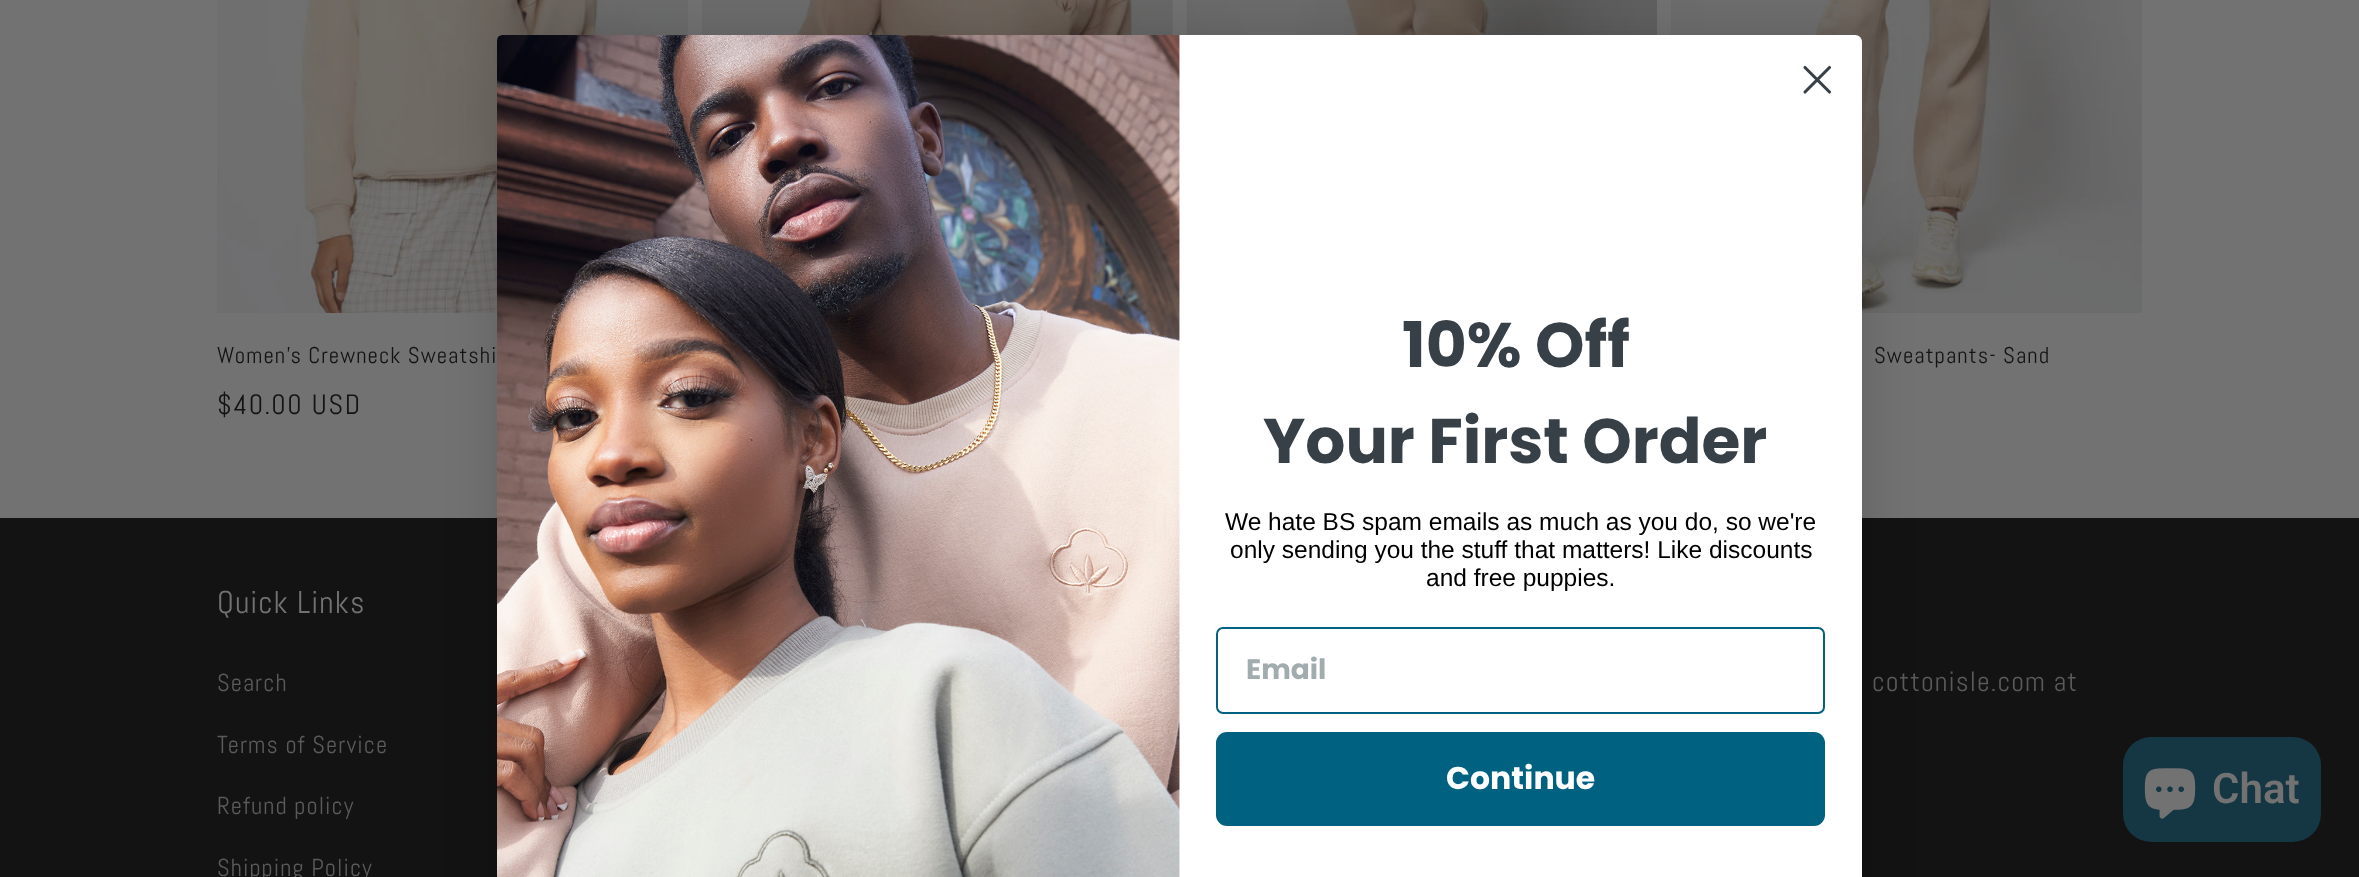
(async () => {
  const canvas = document.querySelector("canvas");
  canvas.width = 2359;
  canvas.height = 877;
  const ctx = canvas.getContext("2d");
  ctx.miterLimit = 4;
  ctx.fontKerning = "normal";
  async function loadImage(src) {
    const img = new Image();
    img.src = src;
    await img.decode();
    return img;
  }
  let path;

  ctx.fillStyle = "#727272";
  ctx.fillRect(0, 0, 2359, 877);
  ctx.fillStyle = "#6d6d6d";
  ctx.fillRect(1172, 0, 1, 35);
  ctx.drawImage(await loadImage("img/2.png"), 702, 0, 471, 35);
  ctx.drawImage(await loadImage("img/3.png"), 1186, 0, 471, 35);
  ctx.fillRect(687, 0, 1, 35);
  ctx.drawImage(await loadImage("img/4.png"), 217, 0, 471, 313);
  ctx.fillRect(1671, 0, 1, 35);
  ctx.drawImage(await loadImage("img/5.png"), 1672, 0, 470, 313);
  ctx.fillStyle = "#131313";
  ctx.fillRect(0, 518, 2359, 359);
  ctx.fillStyle = "rgba(8, 8, 8, 0.15)";
  ctx.filter = "blur(26px)";
  ctx.beginPath();
  ctx.roundRect(497, 35, 1365, 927, 7);
  ctx.fill();
  ctx.filter = "none";
  ctx.fillStyle = "#ffffff";
  path = new Path2D("M504 35H1855C1859 35 1862 38 1862 42V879H497V42C497 38 500 35 504 35Z");
  ctx.fill(path);
  path = new Path2D("M1805 67.5L1829.5 92M1805 92L1829.5 67.5Z");
  ctx.strokeStyle = "#373f47";
  ctx.lineWidth = 3.1;
  ctx.lineCap = "round";
  ctx.lineJoin = "round";
  ctx.stroke(path);
  ctx.drawImage(await loadImage("img/1.png"), 497, 35, 683, 842);
  ctx.beginPath();
  ctx.roundRect(1217, 628, 607, 85, 6);
  ctx.strokeStyle = "#006280";
  ctx.lineWidth = 2;
  ctx.lineJoin = "miter";
  ctx.stroke();
  ctx.fillStyle = "#006280";
  ctx.beginPath();
  ctx.roundRect(1216, 732, 609, 94, 11);
  ctx.fill();
  ctx.fillStyle = "#153643";
  ctx.beginPath();
  ctx.roundRect(2123, 737, 198, 105, 28);
  ctx.fill();
  ctx.drawImage(await loadImage("img/6.png"), 2144, 768, 52, 51);
  ctx.font = "bold 63px Poppins";
  ctx.fillStyle = "#373f47";
  ctx.fillText("10% Off", 1402, 367);
  ctx.fillText("Your First Order", 1263, 463);
  ctx.font = "24.5px Liberation Sans";
  ctx.fillStyle = "#000000";
  for (const [text, x, y] of [
    ["We hate BS spam emails as much as you do, so we're", 1225, 530],
    ["only sending you the stuff that matters! Like discounts", 1230, 558],
    ["and free puppies.", 1426, 586],
  ]) {
    ctx.fillText(text, x, y);
  }
  ctx.font = "bold 28px Poppins";
  ctx.fillStyle = "#a2abad";
  ctx.fillText("Email", 1246, 679);
  ctx.font = "bold 31.5px Poppins";
  ctx.fillStyle = "#ffffff";
  ctx.fillText("Continue", 1446, 789);
  ctx.letterSpacing = "1.05px";
  ctx.font = "22.75px Abel";
  ctx.fillStyle = "#131313";
  ctx.fillText("Women's Crewneck Sweatshi", 217, 363);
  ctx.letterSpacing = "1.75px";
  ctx.font = "28px Abel";
  ctx.fillText("$40.00 USD", 217, 414);
  ctx.letterSpacing = "1.05px";
  ctx.font = "22.75px Abel";
  ctx.fillText("Sweatpants- Sand", 1874, 363);
  ctx.font = "31.5px Abel";
  ctx.fillStyle = "#727272";
  ctx.fillText("Quick Links", 217, 613);
  ctx.font = "24.5px Abel";
  ctx.fillStyle = "#5a5a5a";
  for (const [text, x, y] of [
    ["Search", 217, 691],
    ["Terms of Service", 217, 753],
    ["Refund policy", 217, 814],
    ["Shipping Policy", 217, 876],
  ]) {
    ctx.fillText(text, x, y);
  }
  ctx.font = "28px Abel";
  ctx.fillText("cottonisle.com at", 1872, 691);
  ctx.letterSpacing = "0px";
  ctx.font = "600 42px Roboto";
  ctx.fillStyle = "#727272";
  ctx.fillText("Chat", 2212, 803);
})();
